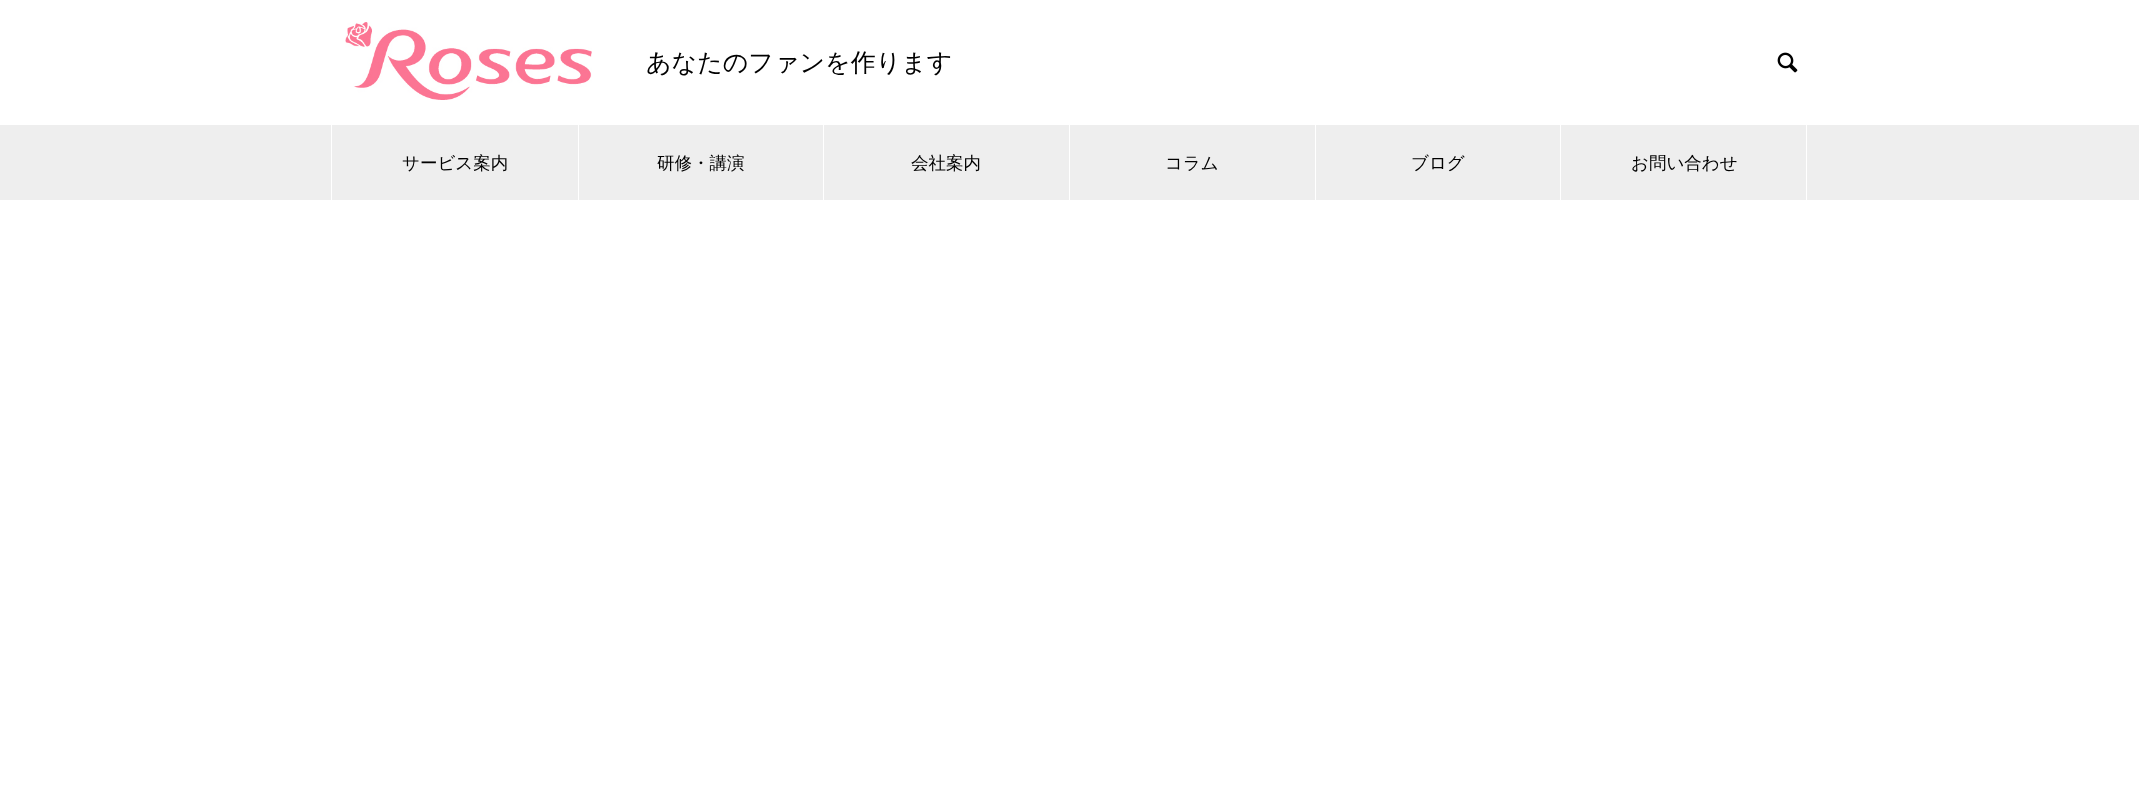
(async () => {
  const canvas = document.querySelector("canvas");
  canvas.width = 2139;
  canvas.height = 785;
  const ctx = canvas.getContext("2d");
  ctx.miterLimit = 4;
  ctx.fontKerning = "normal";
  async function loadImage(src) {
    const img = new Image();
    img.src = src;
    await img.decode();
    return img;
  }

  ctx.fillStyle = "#ffffff";
  ctx.fillRect(0, 0, 2139, 785);
  ctx.drawImage(await loadImage("img/1.png"), 345, 22, 247, 78);
  ctx.drawImage(await loadImage("img/2.png"), 1777, 52, 21, 21);
  for (const [x, y, w, h, color] of [
    [0, 125, 2139, 75, "#eeeeee"],
    [578, 125, 1, 75, "#ffffff"],
    [331, 125, 1, 75, "#ffffff"],
    [823, 125, 1, 75, "#ffffff"],
    [1315, 125, 1, 75, "#ffffff"],
    [1069, 125, 1, 75, "#ffffff"],
    [1560, 125, 1, 75, "#ffffff"],
    [1806, 125, 1, 75, "#ffffff"],
  ]) {
    ctx.fillStyle = color;
    ctx.fillRect(x, y, w, h);
  }
  ctx.font = "500 25px WenQuanYi Zen Hei";
  ctx.fillStyle = "#000000";
  ctx.fillText("あなたのファンを作ります", 646, 71);
  ctx.font = "500 17.5px WenQuanYi Zen Hei";
  for (const [text, x, y] of [
    ["サービス案内", 402, 169],
    ["研修・講演", 657, 169],
    ["会社案内", 911, 169],
    ["コラム", 1165, 169],
    ["ブログ", 1411, 169],
    ["お問い合わせ", 1631, 169],
  ]) {
    ctx.fillText(text, x, y);
  }
})();
